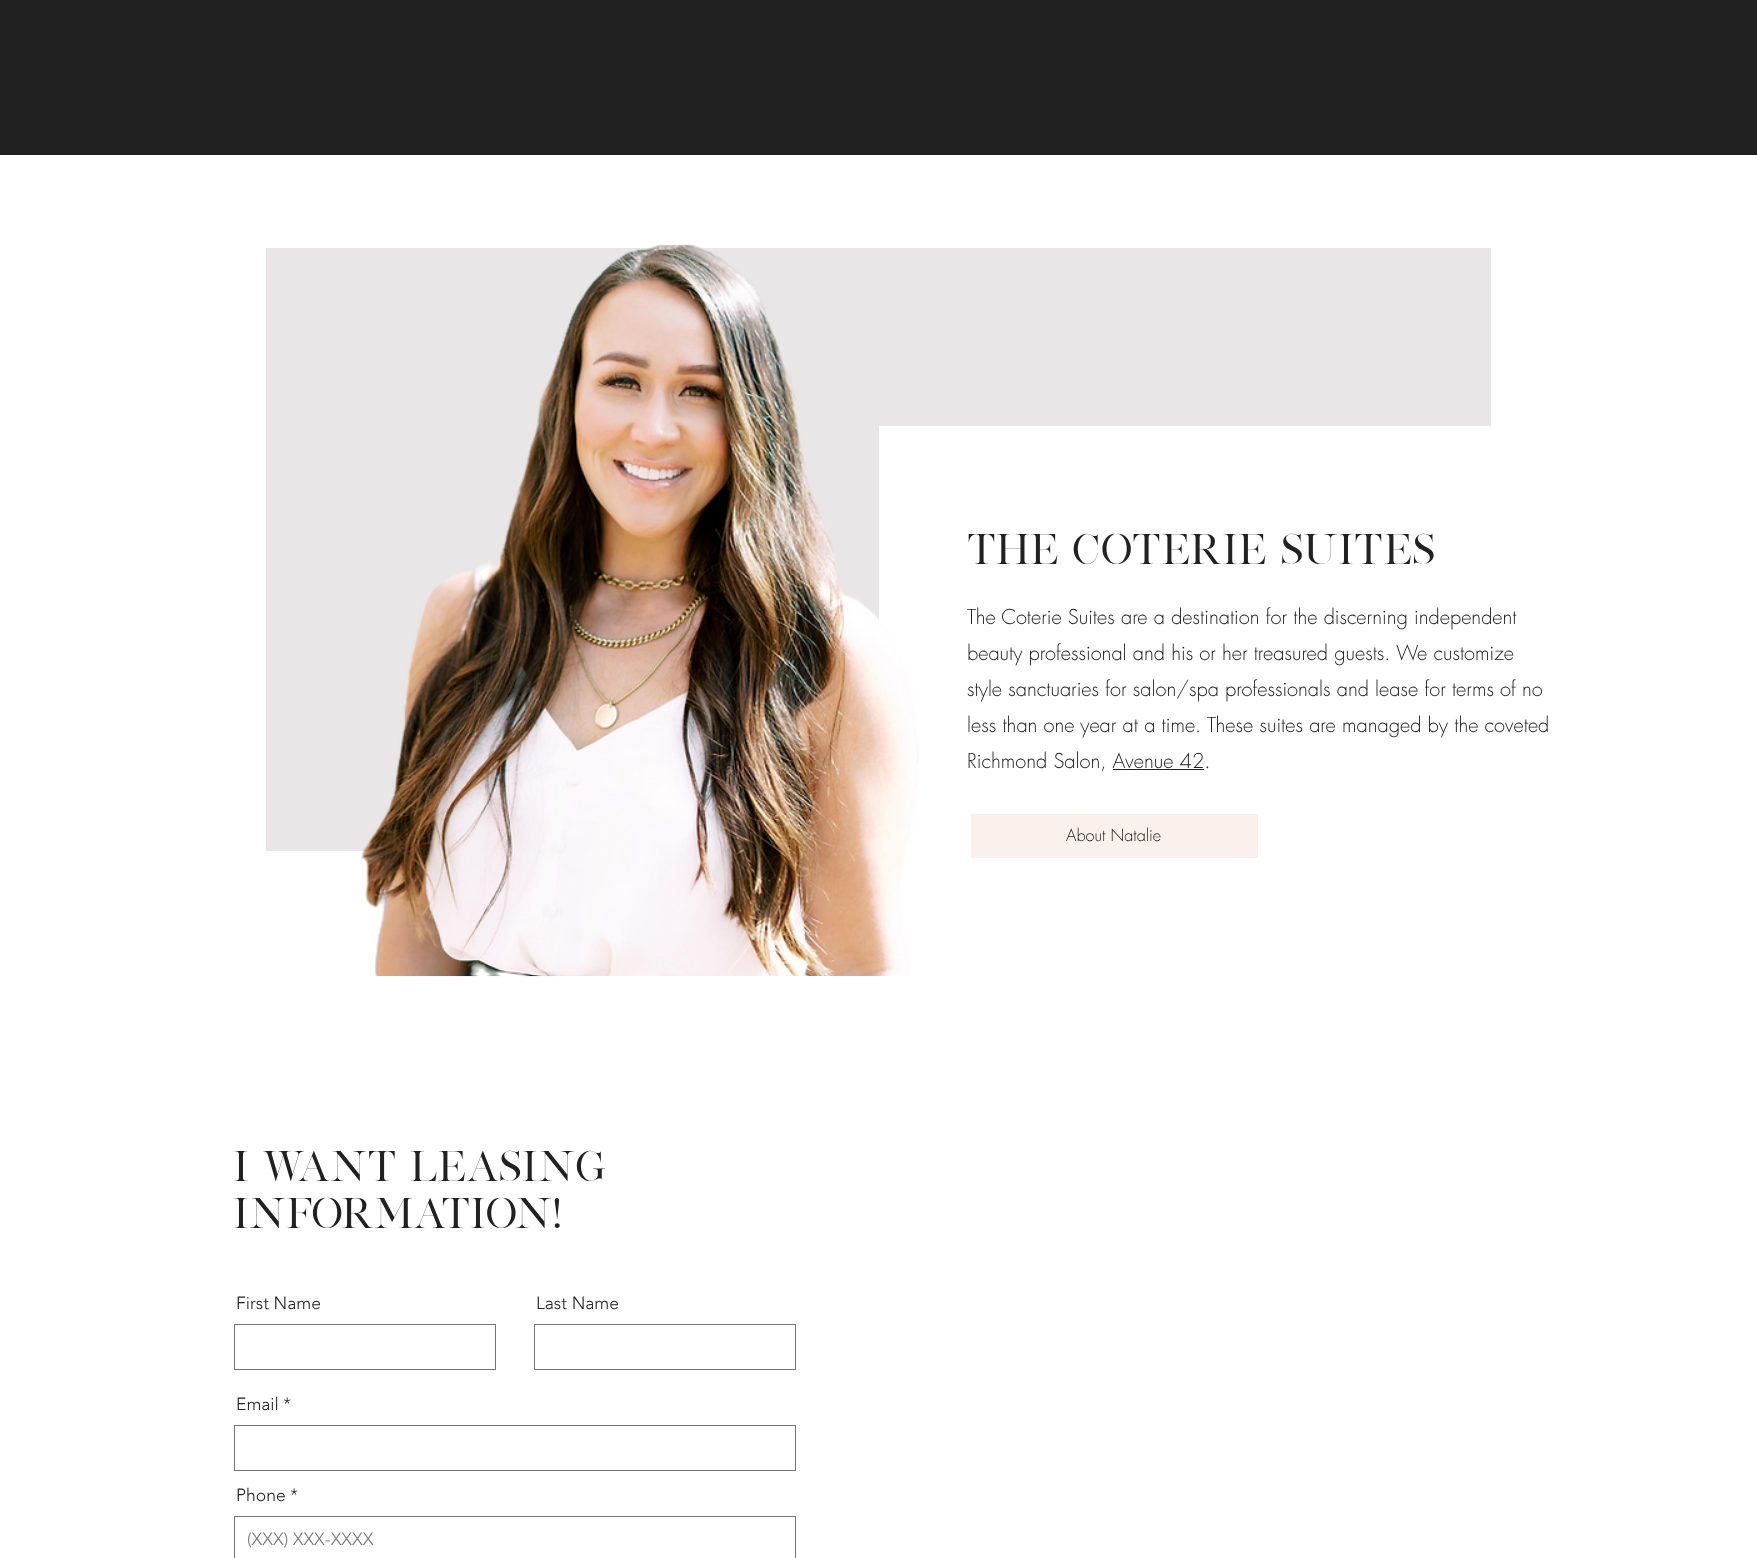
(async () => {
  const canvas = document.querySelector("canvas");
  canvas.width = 1757;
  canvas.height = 1558;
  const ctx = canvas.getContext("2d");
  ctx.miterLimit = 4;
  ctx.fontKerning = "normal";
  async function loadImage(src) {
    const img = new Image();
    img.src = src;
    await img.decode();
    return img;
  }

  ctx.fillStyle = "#ffffff";
  ctx.fillRect(0, 0, 1757, 1558);
  for (const [x, y, w, h, color] of [
    [0, 0, 1757, 155, "#212121"],
    [266, 248, 738, 603, "#e8e6e6"],
    [879, 426, 125, 425, "#ffffff"],
  ]) {
    ctx.fillStyle = color;
    ctx.fillRect(x, y, w, h);
  }
  ctx.drawImage(await loadImage("img/1.png"), 361, 244, 558, 733);
  for (const [x, y, w, h, color] of [
    [1004, 248, 487, 178, "#e8e6e6"],
    [1113, 769, 91, 1, "#212121"],
    [971, 814, 287, 44, "#fbf1ec"],
    [793, 976, 89, 1, "#ffffff"],
  ]) {
    ctx.fillStyle = color;
    ctx.fillRect(x, y, w, h);
  }
  ctx.strokeStyle = "#757575";
  ctx.strokeRect(234.5, 1324.5, 261, 45);
  ctx.strokeRect(534.5, 1324.5, 261, 45);
  ctx.strokeRect(234.5, 1425.5, 561, 45);
  ctx.strokeRect(234.5, 1516.5, 561, 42);
  ctx.font = "37.5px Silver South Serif";
  ctx.fillStyle = "#212121";
  ctx.fillText("THE COTERIE SUITES", 967, 564);
  ctx.font = "300 20px futura";
  for (const [text, x, y] of [
    ["The Coterie Suites are a destination for the discerning independent", 967, 624],
    ["beauty professional and his or her treasured guests. We customize", 967, 660],
    ["style sanctuaries for salon/spa professionals and lease for terms of no", 967, 696],
    ["less than one year at a time. These suites are managed by the coveted", 967, 732],
    ["Richmond Salon, Avenue 42.", 967, 768],
  ]) {
    ctx.fillText(text, x, y);
  }
  ctx.font = "300 16.25px futura";
  ctx.fillText("About Natalie", 1066, 841);
  ctx.font = "37.5px Silver South Serif";
  ctx.fillText("I WANT LEASING", 233, 1181);
  ctx.fillText("INFORMATION!", 233, 1228);
  ctx.font = "300 17.5px 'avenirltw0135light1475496'";
  for (const [text, x, y] of [
    ["First Name", 236, 1309],
    ["Last Name", 536, 1309],
    ["Email *", 236, 1410],
    ["Phone *", 236, 1501],
  ]) {
    ctx.fillText(text, x, y);
  }
  ctx.fillStyle = "#757575";
  ctx.fillText("(XXX) XXX-XXXX", 247, 1545);
})();
